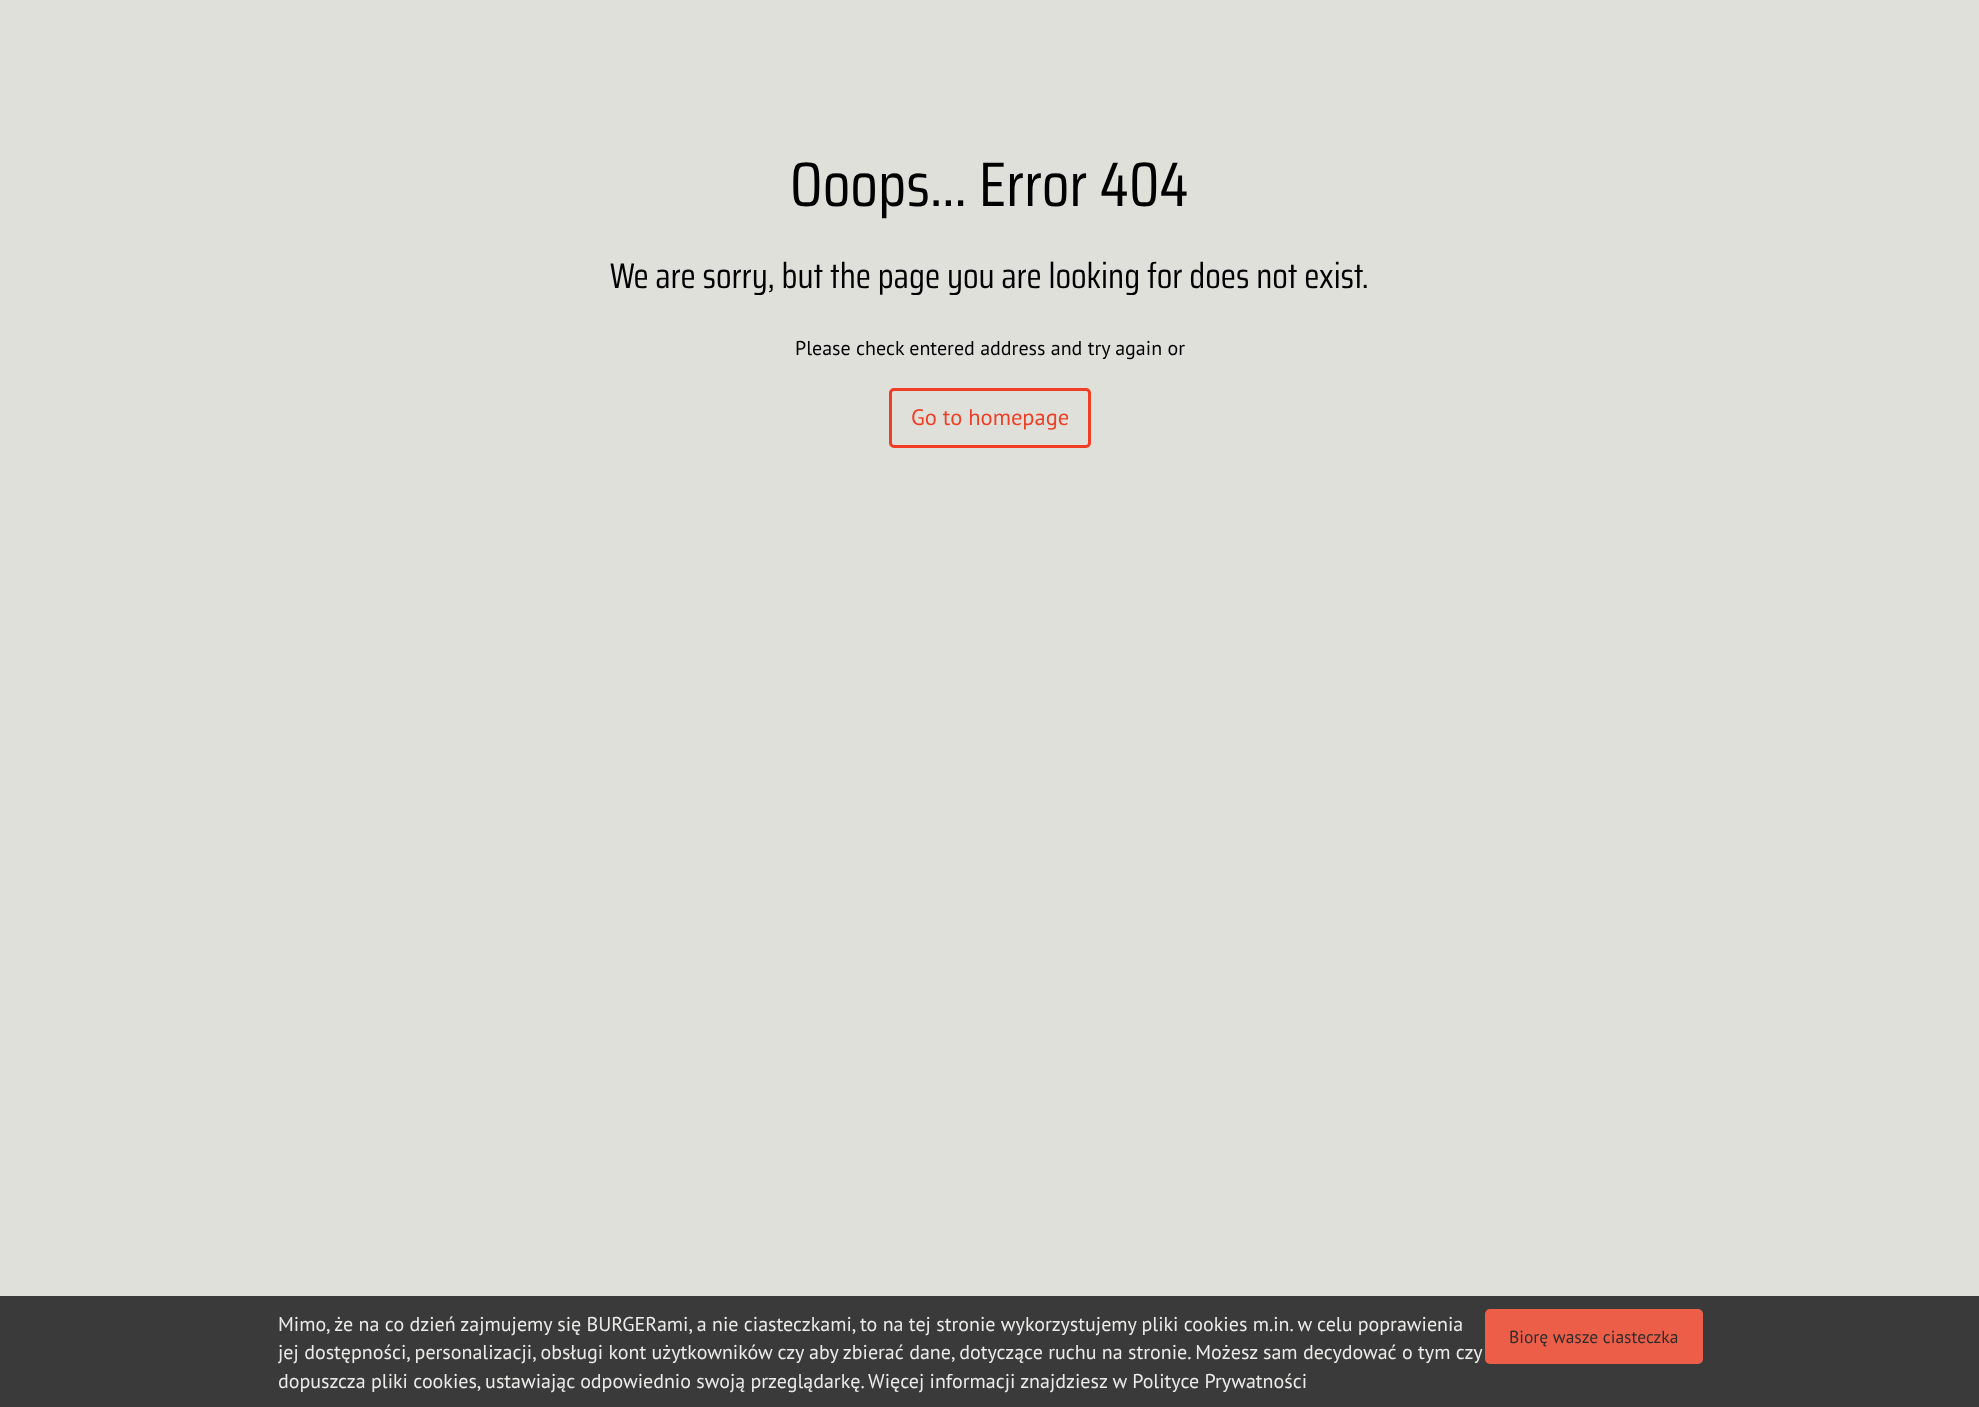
(async () => {
  const canvas = document.querySelector("canvas");
  canvas.width = 1979;
  canvas.height = 1407;
  const ctx = canvas.getContext("2d");
  ctx.miterLimit = 4;
  ctx.fontKerning = "normal";

  ctx.fillStyle = "#e0e0db";
  ctx.fillRect(0, 0, 1979, 1407);
  ctx.beginPath();
  ctx.roundRect(890.5, 389.5, 199, 57, 3.5);
  ctx.strokeStyle = "#f03e24";
  ctx.lineWidth = 3;
  ctx.stroke();
  ctx.fillStyle = "#3a3a3a";
  ctx.fillRect(0, 1296, 1979, 111);
  ctx.fillStyle = "#ed5e49";
  ctx.beginPath();
  ctx.roundRect(1485, 1309, 218, 55, 5);
  ctx.fill();
  ctx.font = "63px Saira Condensed";
  ctx.fillStyle = "#000000";
  ctx.fillText("Ooops... Error 404", 790, 206);
  ctx.font = "35.5px Saira Condensed";
  ctx.fillText("We are sorry, but the page you are looking for does not exist.", 610, 288);
  ctx.font = "20px PT Sans";
  ctx.fillText("Please check entered address and try again or", 795, 355);
  ctx.font = "22.5px PT Sans";
  ctx.fillStyle = "#f03e24";
  ctx.fillText("Go to homepage", 911, 425);
  ctx.font = "20px PT Sans";
  ctx.fillStyle = "#ebebea";
  ctx.fillText("Mimo, że na co dzień zajmujemy się BURGERami, a nie ciasteczkami, to na tej stronie wykorzystujemy pliki cookies m.in. w celu poprawienia", 278, 1331);
  ctx.font = "17.5px PT Sans";
  ctx.fillStyle = "#2d2d2c";
  ctx.fillText("Biorę wasze ciasteczka", 1509, 1343);
  ctx.font = "20px PT Sans";
  ctx.fillStyle = "#ebebea";
  ctx.fillText("jej dostępności, personalizacji, obsługi kont użytkowników czy aby zbierać dane, dotyczące ruchu na stronie. Możesz sam decydować o tym czy", 278, 1359);
  ctx.fillText("dopuszcza pliki cookies, ustawiając odpowiednio swoją przeglądarkę. Więcej informacji znajdziesz w Polityce Prywatności", 278, 1388);
})();
